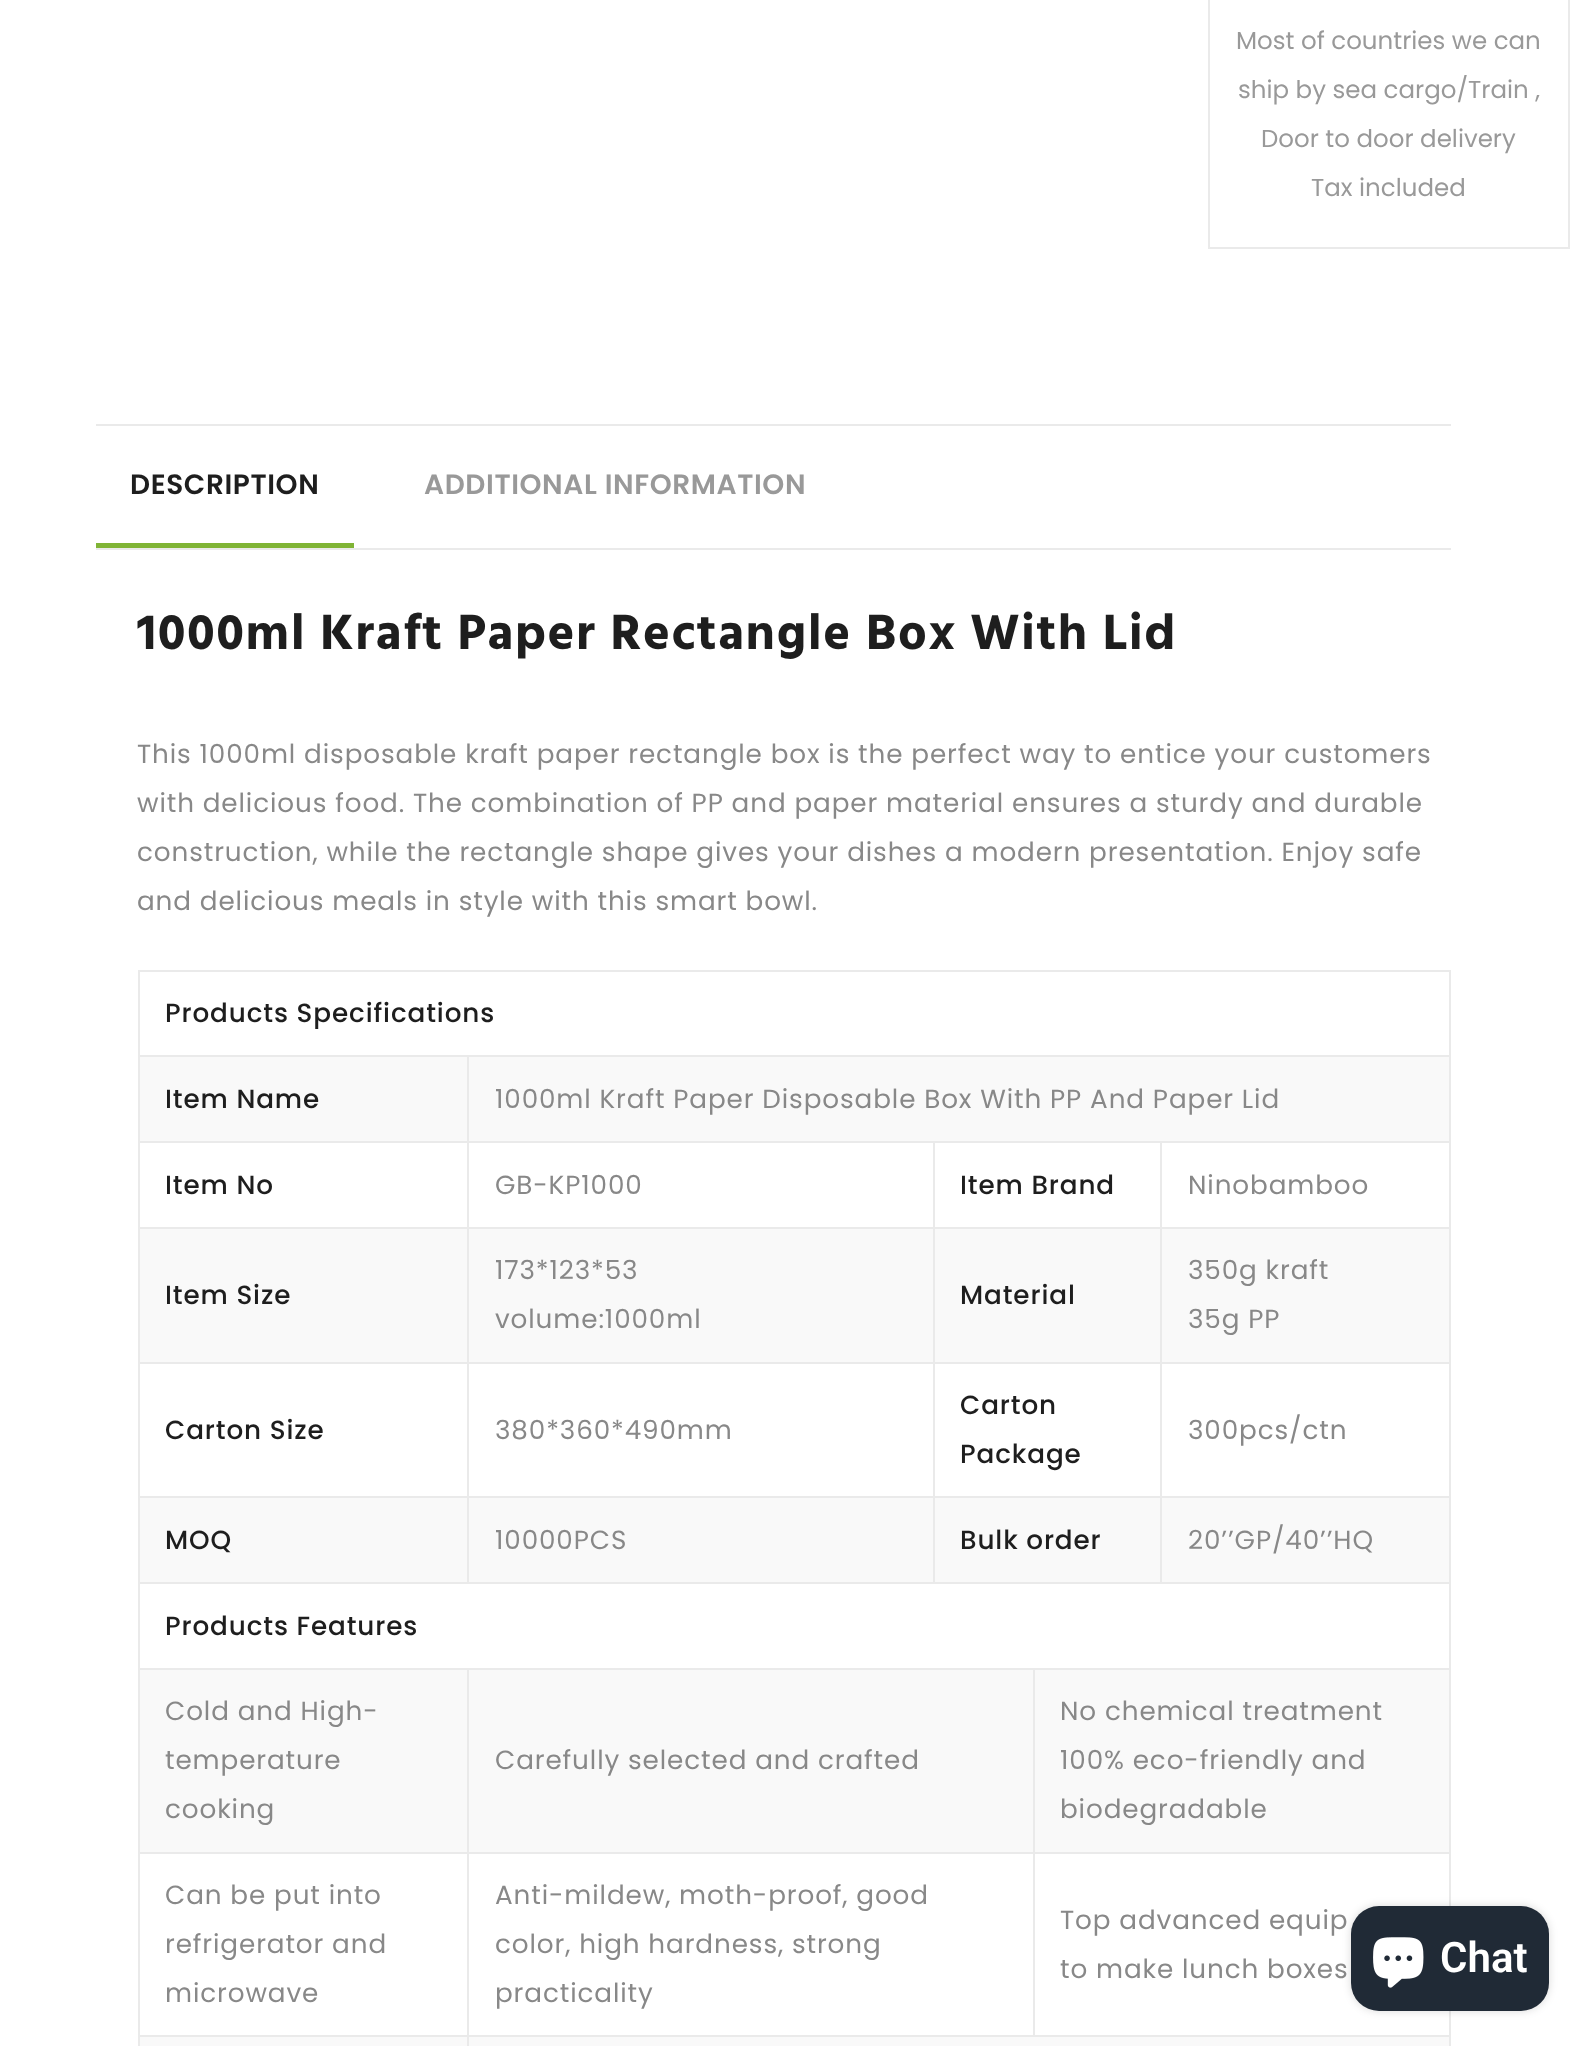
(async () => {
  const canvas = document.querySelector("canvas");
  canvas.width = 1587;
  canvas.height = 2046;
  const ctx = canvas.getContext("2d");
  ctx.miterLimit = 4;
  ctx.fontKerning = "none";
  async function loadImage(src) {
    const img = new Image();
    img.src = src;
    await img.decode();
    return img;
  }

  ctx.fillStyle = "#ffffff";
  ctx.fillRect(0, 0, 1587, 2046);
  ctx.strokeStyle = "#eaeaea";
  ctx.lineWidth = 2;
  ctx.strokeRect(1209, -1, 360, 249);
  for (const [x, y, w, h, color] of [
    [96, 424, 1355, 2, "#eaeaea"],
    [96, 548, 1355, 2, "#eaeaea"],
    [96, 543, 258, 5, "#80b435"],
    [138, 970, 1313, 2, "#eaeaea"],
    [1449, 970, 2, 1076, "#eaeaea"],
    [138, 970, 2, 1076, "#eaeaea"],
    [1160, 1582, 291, 2, "#eaeaea"],
    [1160, 1496, 2, 88, "#eaeaea"],
    [1160, 1496, 291, 2, "#eaeaea"],
    [1160, 1362, 2, 136, "#eaeaea"],
    [1160, 1362, 291, 2, "#eaeaea"],
    [1160, 1227, 2, 136, "#eaeaea"],
    [1160, 1227, 291, 2, "#eaeaea"],
    [1160, 1141, 2, 88, "#eaeaea"],
    [933, 1582, 229, 2, "#eaeaea"],
    [933, 1496, 2, 88, "#eaeaea"],
    [933, 1496, 229, 2, "#eaeaea"],
    [933, 1362, 2, 136, "#eaeaea"],
    [933, 1362, 229, 2, "#eaeaea"],
    [933, 1227, 2, 136, "#eaeaea"],
    [933, 1227, 229, 2, "#eaeaea"],
    [933, 1141, 2, 88, "#eaeaea"],
    [467, 1582, 468, 2, "#eaeaea"],
    [467, 1496, 2, 88, "#eaeaea"],
    [467, 1496, 468, 2, "#eaeaea"],
    [467, 1362, 2, 136, "#eaeaea"],
    [467, 1362, 468, 2, "#eaeaea"],
    [467, 1227, 2, 136, "#eaeaea"],
    [467, 1227, 468, 2, "#eaeaea"],
    [467, 1141, 2, 88, "#eaeaea"],
    [467, 1141, 984, 2, "#eaeaea"],
    [467, 1055, 2, 88, "#eaeaea"],
    [138, 1055, 1313, 2, "#eaeaea"],
    [140, 1057, 327, 84, "#f9f9f9"],
    [138, 1141, 331, 2, "#eaeaea"],
    [469, 1057, 980, 84, "#f9f9f9"],
    [138, 1227, 331, 2, "#eaeaea"],
    [140, 1229, 327, 133, "#f9f9f9"],
    [138, 1362, 331, 2, "#eaeaea"],
    [469, 1229, 464, 133, "#f9f9f9"],
    [935, 1229, 225, 133, "#f9f9f9"],
    [1162, 1229, 287, 133, "#f9f9f9"],
    [138, 1496, 331, 2, "#eaeaea"],
    [140, 1498, 327, 84, "#f9f9f9"],
    [138, 1582, 331, 2, "#eaeaea"],
    [469, 1498, 464, 84, "#f9f9f9"],
    [935, 1498, 225, 84, "#f9f9f9"],
    [1162, 1498, 287, 84, "#f9f9f9"],
    [1033, 2035, 418, 2, "#eaeaea"],
    [1033, 1852, 2, 185, "#eaeaea"],
    [1033, 1852, 418, 2, "#eaeaea"],
    [1033, 1668, 2, 185, "#eaeaea"],
    [467, 2035, 2, 11, "#eaeaea"],
    [467, 2035, 567, 2, "#eaeaea"],
    [467, 1852, 2, 185, "#eaeaea"],
    [467, 1852, 567, 2, "#eaeaea"],
    [467, 1668, 2, 185, "#eaeaea"],
    [138, 1668, 1313, 2, "#eaeaea"],
    [140, 1670, 327, 182, "#f9f9f9"],
    [138, 1852, 331, 2, "#eaeaea"],
    [469, 1670, 564, 182, "#f9f9f9"],
    [1035, 1670, 414, 182, "#f9f9f9"],
    [138, 2035, 331, 2, "#eaeaea"],
    [140, 2037, 327, 9, "#f9f9f9"],
    [469, 2037, 980, 9, "#f9f9f9"],
  ]) {
    ctx.fillStyle = color;
    ctx.fillRect(x, y, w, h);
  }
  ctx.fillStyle = "rgba(0, 0, 0, 0.15)";
  ctx.filter = "blur(4.5px)";
  ctx.beginPath();
  ctx.roundRect(1351, 1906, 198, 105, 28);
  ctx.fill();
  ctx.filter = "none";
  ctx.fillStyle = "#202a36";
  ctx.beginPath();
  ctx.roundRect(1351, 1906, 198, 105, 28);
  ctx.fill();
  ctx.drawImage(await loadImage("img/1.png"), 1373, 1937, 51, 51);
  ctx.font = "24.5px Poppins";
  ctx.fillStyle = "#999999";
  for (const [text, x, y] of [
    ["Most of countries we can", 1236, 49],
    ["ship by sea cargo/Train ,", 1238, 98],
    ["Door to door delivery", 1261, 147],
    ["Tax included", 1311, 196],
  ]) {
    ctx.fillText(text, x, y);
  }
  ctx.letterSpacing = "0.6px";
  ctx.font = "600 28px Poppins";
  ctx.fillStyle = "#1e1e1e";
  ctx.fillText("DESCRIPTION", 130, 494);
  ctx.fillStyle = "#999999";
  ctx.fillText("ADDITIONAL INFORMATION", 424, 494);
  ctx.letterSpacing = "1.5px";
  ctx.wordSpacing = "-0.25px";
  ctx.font = "bold 50.75px Hind";
  ctx.fillStyle = "#1e1e1e";
  ctx.fillText("1000ml Kraft Paper Rectangle Box With Lid", 137, 649);
  ctx.letterSpacing = "0.88px";
  ctx.wordSpacing = "0px";
  ctx.font = "26.25px Poppins";
  ctx.fillStyle = "#888888";
  for (const [text, x, y] of [
    ["This 1000ml disposable kraft paper rectangle box is the perfect way to entice your customers", 137, 763],
    ["with delicious food. The combination of PP and paper material ensures a sturdy and durable", 137, 812],
    ["construction, while the rectangle shape gives your dishes a modern presentation. Enjoy safe", 137, 861],
    ["and delicious meals in style with this smart bowl.", 137, 910],
  ]) {
    ctx.fillText(text, x, y);
  }
  ctx.font = "500 26.25px Poppins";
  ctx.fillStyle = "#1e1e1e";
  ctx.fillText("Products Specifications", 165, 1022);
  ctx.fillText("Item Name", 165, 1108);
  ctx.font = "26.25px Poppins";
  ctx.fillStyle = "#888888";
  ctx.fillText("1000ml Kraft Paper Disposable Box With PP And Paper Lid", 495, 1108);
  ctx.font = "500 26.25px Poppins";
  ctx.fillStyle = "#1e1e1e";
  ctx.fillText("Item No", 165, 1194);
  ctx.font = "26.25px Poppins";
  ctx.fillStyle = "#888888";
  ctx.fillText("GB-KP1000", 495, 1194);
  ctx.font = "500 26.25px Poppins";
  ctx.fillStyle = "#1e1e1e";
  ctx.fillText("Item Brand", 960, 1194);
  ctx.font = "26.25px Poppins";
  ctx.fillStyle = "#888888";
  ctx.fillText("Ninobamboo", 1188, 1194);
  ctx.font = "500 26.25px Poppins";
  ctx.fillStyle = "#1e1e1e";
  ctx.fillText("Item Size", 165, 1304);
  ctx.font = "26.25px Poppins";
  ctx.fillStyle = "#888888";
  ctx.fillText("173*123*53", 495, 1279);
  ctx.fillText("volume:1000ml", 495, 1328);
  ctx.font = "500 26.25px Poppins";
  ctx.fillStyle = "#1e1e1e";
  ctx.fillText("Material", 960, 1304);
  ctx.font = "26.25px Poppins";
  ctx.fillStyle = "#888888";
  ctx.fillText("350g kraft", 1188, 1279);
  ctx.fillText("35g PP", 1188, 1328);
  ctx.font = "500 26.25px Poppins";
  ctx.fillStyle = "#1e1e1e";
  ctx.fillText("Carton Size", 165, 1439);
  ctx.font = "26.25px Poppins";
  ctx.fillStyle = "#888888";
  ctx.fillText("380*360*490mm", 495, 1439);
  ctx.font = "500 26.25px Poppins";
  ctx.fillStyle = "#1e1e1e";
  ctx.fillText("Carton", 960, 1414);
  ctx.fillText("Package", 960, 1463);
  ctx.font = "26.25px Poppins";
  ctx.fillStyle = "#888888";
  ctx.fillText("300pcs/ctn", 1188, 1439);
  ctx.font = "500 26.25px Poppins";
  ctx.fillStyle = "#1e1e1e";
  ctx.fillText("MOQ", 165, 1549);
  ctx.font = "26.25px Poppins";
  ctx.fillStyle = "#888888";
  ctx.fillText("10000PCS", 495, 1549);
  ctx.font = "500 26.25px Poppins";
  ctx.fillStyle = "#1e1e1e";
  ctx.fillText("Bulk order", 960, 1549);
  ctx.font = "26.25px Poppins";
  ctx.fillStyle = "#888888";
  ctx.fillText("20’’GP/40’’HQ", 1188, 1549);
  ctx.font = "500 26.25px Poppins";
  ctx.fillStyle = "#1e1e1e";
  ctx.fillText("Products Features", 165, 1635);
  ctx.font = "26.25px Poppins";
  ctx.fillStyle = "#888888";
  for (const [text, x, y] of [
    ["Cold and High-", 165, 1720],
    ["temperature", 165, 1769],
    ["cooking", 165, 1818],
    ["Carefully selected and crafted", 495, 1769],
    ["No chemical treatment", 1060, 1720],
    ["100% eco-friendly and", 1060, 1769],
    ["biodegradable", 1060, 1818],
    ["Can be put into", 165, 1904],
    ["refrigerator and", 165, 1953],
    ["microwave", 165, 2002],
    ["Anti-mildew, moth-proof, good", 495, 1904],
    ["color, high hardness, strong", 495, 1953],
    ["practicality", 495, 2002],
    ["Top advanced equip", 1060, 1929],
    ["to make lunch boxes", 1060, 1978],
  ]) {
    ctx.fillText(text, x, y);
  }
  ctx.letterSpacing = "0px";
  ctx.font = "600 42px Roboto";
  ctx.fillStyle = "#ffffff";
  ctx.fillText("Chat", 1440, 1972);
})();
